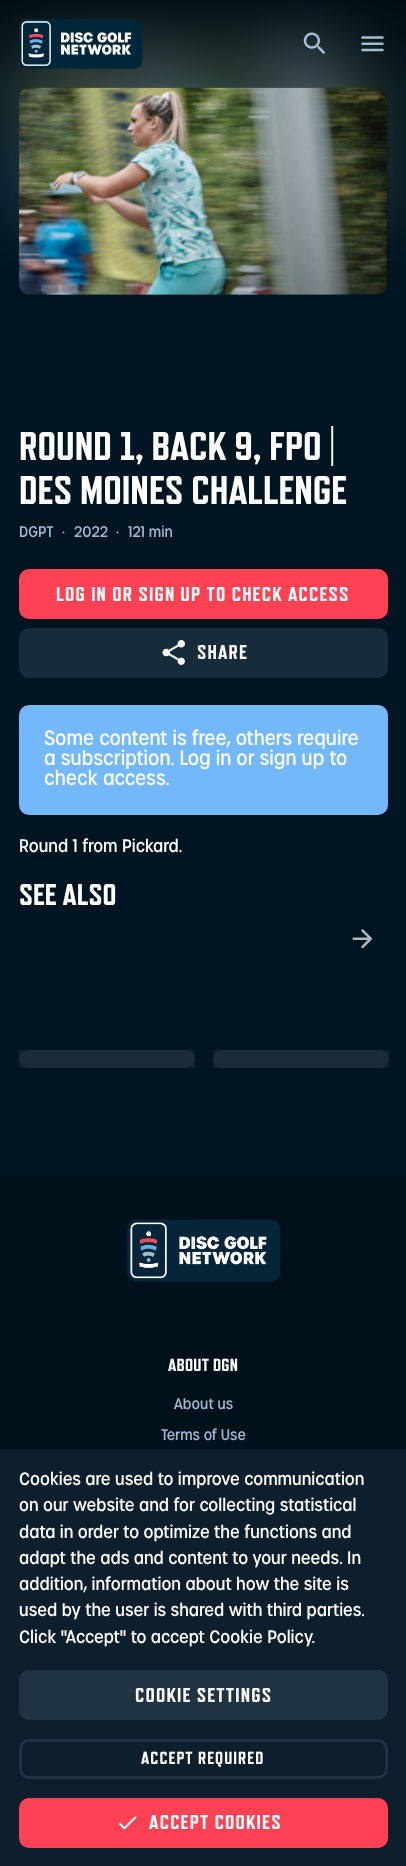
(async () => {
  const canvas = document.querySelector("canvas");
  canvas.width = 406;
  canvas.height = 1866;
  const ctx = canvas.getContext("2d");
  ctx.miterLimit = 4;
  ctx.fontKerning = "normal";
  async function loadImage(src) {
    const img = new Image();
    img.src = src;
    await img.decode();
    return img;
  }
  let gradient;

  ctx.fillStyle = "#001521";
  ctx.fillRect(0, 0, 406, 1866);
  ctx.drawImage(await loadImage("img/4.png"), 0, 0, 406, 266);
  gradient = ctx.createLinearGradient(203, 0, 203, 88);
  gradient.addColorStop(0, "rgba(0, 11, 17, 0.8)");
  gradient.addColorStop(1, "rgba(0, 11, 17, 0)");
  ctx.fillStyle = gradient;
  ctx.fillRect(0, 0, 406, 84);
  ctx.drawImage(await loadImage("img/1.png"), 19, 19, 124, 50);
  ctx.drawImage(await loadImage("img/2.png"), 303, 32, 22, 22);
  ctx.drawImage(await loadImage("img/3.png"), 361, 36, 23, 16);
  ctx.drawImage(await loadImage("img/5.png"), 19, 87, 369, 208);
  gradient = ctx.createLinearGradient(31, 70, 376, 312);
  gradient.addColorStop(0, "rgba(0, 0, 0, 0)");
  gradient.addColorStop(0.5, "rgba(0, 0, 0, 0)");
  gradient.addColorStop(1, "rgba(0, 0, 0, 0.3)");
  ctx.fillStyle = gradient;
  ctx.beginPath();
  ctx.roundRect(19, 88, 369, 207, 10);
  ctx.fill();
  ctx.fillStyle = "#fe4254";
  ctx.beginPath();
  ctx.roundRect(19, 569, 369, 50, 10);
  ctx.fill();
  ctx.fillStyle = "#172c3a";
  ctx.beginPath();
  ctx.roundRect(19, 628, 369, 50, 10);
  ctx.fill();
  ctx.drawImage(await loadImage("img/6.png"), 162, 640, 23, 25);
  ctx.fillStyle = "#74b8fc";
  ctx.beginPath();
  ctx.roundRect(19, 705, 369, 110, 10);
  ctx.fill();
  ctx.drawImage(await loadImage("img/7.png"), 352, 929, 20, 20);
  ctx.fillStyle = "#0d212c";
  ctx.beginPath();
  ctx.roundRect(19, 1050, 176, 18, 9);
  ctx.fill();
  gradient = ctx.createLinearGradient(-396, 1113, 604, 1113);
  gradient.addColorStop(0.1, "rgba(255, 255, 255, 0.05)");
  gradient.addColorStop(0.18, "rgba(255, 255, 255, 0.08)");
  gradient.addColorStop(0.33, "rgba(255, 255, 255, 0.05)");
  ctx.fillStyle = gradient;
  ctx.fillRect(19, 1050, 176, 18);
  ctx.fillStyle = "#0d212c";
  ctx.beginPath();
  ctx.roundRect(213, 1050, 176, 18, 9);
  ctx.fill();
  gradient = ctx.createLinearGradient(-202, 1113, 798, 1113);
  gradient.addColorStop(0.1, "rgba(255, 255, 255, 0.05)");
  gradient.addColorStop(0.18, "rgba(255, 255, 255, 0.08)");
  gradient.addColorStop(0.33, "rgba(255, 255, 255, 0.05)");
  ctx.fillStyle = gradient;
  ctx.fillRect(213, 1050, 176, 18);
  ctx.fillStyle = "#00111b";
  ctx.fillRect(0, 1176, 406, 273);
  ctx.drawImage(await loadImage("img/8.png"), 127, 1219, 154, 63);
  ctx.fillStyle = "#0d1e2c";
  ctx.fillRect(0, 1449, 406, 417);
  ctx.fillStyle = "#203342";
  ctx.beginPath();
  ctx.roundRect(19, 1670, 369, 50, 10);
  ctx.fill();
  ctx.beginPath();
  ctx.roundRect(20.5, 1740.5, 366, 37, 8.5);
  ctx.strokeStyle = "#203342";
  ctx.lineWidth = 3;
  ctx.stroke();
  ctx.fillStyle = "#fe4254";
  ctx.beginPath();
  ctx.roundRect(19, 1798, 369, 50, 10);
  ctx.fill();
  ctx.drawImage(await loadImage("img/9.png"), 119, 1816, 18, 14);
  ctx.font = "800 40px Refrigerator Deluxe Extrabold";
  ctx.fillStyle = "#ffffff";
  ctx.fillText("ROUND 1, BACK 9, FPO |", 19, 460);
  ctx.fillText("DES MOINES CHALLENGE", 19, 504);
  ctx.font = "500 15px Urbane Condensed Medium";
  ctx.fillStyle = "#a1bad3";
  for (const [text, x, y] of [
    ["DGPT", 19, 537],
    ["·", 62, 537],
    ["2022", 74, 537],
    ["·", 116, 537],
    ["121 min", 128, 537],
  ]) {
    ctx.fillText(text, x, y);
  }
  ctx.letterSpacing = "1.2px";
  ctx.font = "800 20px Refrigerator Deluxe Extrabold";
  ctx.fillStyle = "#ffffff";
  ctx.fillText("LOG IN OR SIGN UP TO CHECK ACCESS", 56, 601);
  ctx.fillText("SHARE", 197, 659);
  ctx.letterSpacing = "0px";
  ctx.font = "500 20px Urbane Condensed Medium";
  for (const [text, x, y] of [
    ["Some content is free, others require", 44, 745],
    ["a subscription. Log in or sign up to", 44, 765],
    ["check access.", 44, 785],
  ]) {
    ctx.fillText(text, x, y);
  }
  ctx.font = "500 17.5px Urbane Condensed Medium";
  ctx.fillText("Round 1 from Pickard.", 19, 852);
  ctx.font = "800 30px Refrigerator Deluxe Extrabold";
  ctx.fillText("SEE ALSO", 19, 905);
  ctx.letterSpacing = "0.25px";
  ctx.font = "800 17.5px Refrigerator Deluxe Extrabold";
  ctx.fillText("ABOUT DGN", 168, 1371);
  ctx.letterSpacing = "0px";
  ctx.font = "500 15px Urbane Condensed Medium";
  ctx.fillStyle = "#a1bad3";
  ctx.fillText("About us", 174, 1409);
  ctx.fillText("Terms of Use", 161, 1440);
  ctx.font = "500 17.5px Urbane Condensed Medium";
  ctx.fillStyle = "#ffffff";
  for (const [text, x, y] of [
    ["Cookies are used to improve communication", 19, 1485],
    ["on our website and for collecting statistical", 19, 1511],
    ["data in order to optimize the functions and", 19, 1538],
    ["adapt the ads and content to your needs. In", 19, 1564],
    ["addition, information about how the site is", 19, 1590],
    ["used by the user is shared with third parties.", 19, 1616],
    ["Click \"Accept\" to accept Cookie Policy.", 19, 1643],
  ]) {
    ctx.fillText(text, x, y);
  }
  ctx.letterSpacing = "1.2px";
  ctx.font = "800 20px Refrigerator Deluxe Extrabold";
  ctx.fillText("COOKIE SETTINGS", 135, 1702);
  ctx.letterSpacing = "1px";
  ctx.font = "800 17.5px Refrigerator Deluxe Extrabold";
  ctx.fillText("ACCEPT REQUIRED", 141, 1764);
  ctx.letterSpacing = "1.2px";
  ctx.font = "800 20px Refrigerator Deluxe Extrabold";
  ctx.fillText("ACCEPT COOKIES", 149, 1829);
})();
